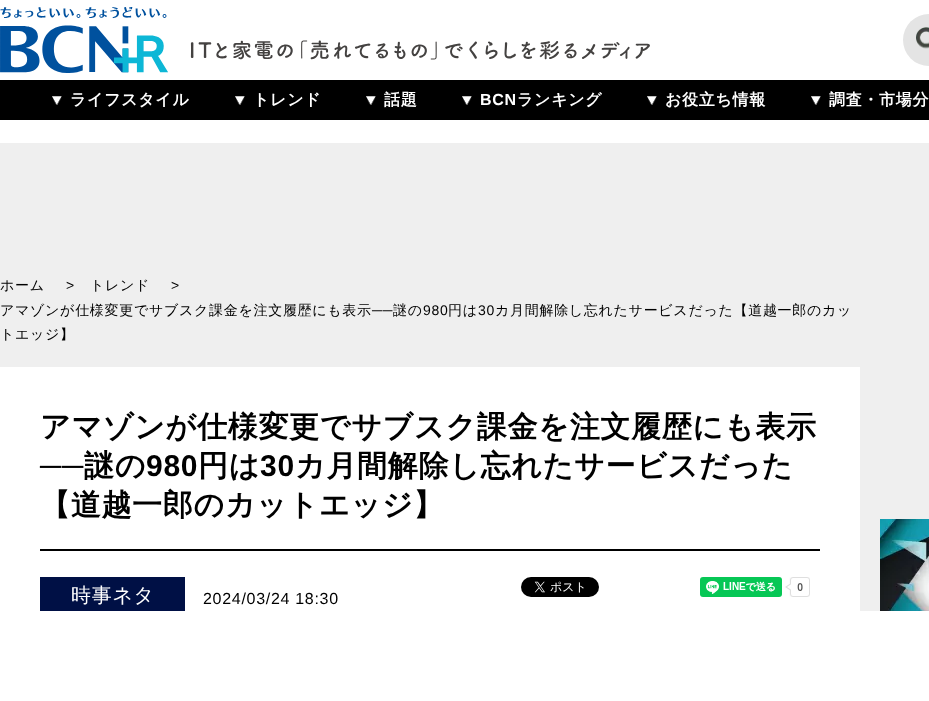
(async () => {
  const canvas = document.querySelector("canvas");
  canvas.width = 929;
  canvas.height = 701;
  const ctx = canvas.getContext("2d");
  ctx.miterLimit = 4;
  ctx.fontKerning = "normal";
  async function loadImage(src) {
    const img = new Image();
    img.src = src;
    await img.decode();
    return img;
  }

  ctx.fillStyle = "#ffffff";
  ctx.fillRect(0, 0, 929, 701);
  ctx.drawImage(await loadImage("img/1.png"), 0, 7, 650, 66);
  ctx.fillStyle = "#e4e4e4";
  ctx.beginPath();
  ctx.arc(929, 40, 26, 0, Math.PI * 2);
  ctx.fill();
  ctx.drawImage(await loadImage("img/2.png"), 916, 27, 13, 22);
  ctx.fillStyle = "#000000";
  ctx.fillRect(0, 80, 929, 40);
  ctx.drawImage(await loadImage("img/3.png"), 52, 96, 10, 9);
  ctx.drawImage(await loadImage("img/3.png"), 235, 96, 10, 9);
  ctx.drawImage(await loadImage("img/3.png"), 366, 96, 10, 9);
  ctx.drawImage(await loadImage("img/4.png"), 462, 96, 10, 9);
  ctx.drawImage(await loadImage("img/4.png"), 647, 96, 10, 9);
  ctx.drawImage(await loadImage("img/3.png"), 811, 96, 10, 9);
  for (const [x, y, w, h, color] of [
    [0, 143, 929, 468, "#efefef"],
    [0, 367, 860, 244, "#ffffff"],
    [40, 549, 780, 2, "#000000"],
    [40, 577, 145, 34, "#001045"],
  ]) {
    ctx.fillStyle = color;
    ctx.fillRect(x, y, w, h);
  }
  ctx.drawImage(await loadImage("img/5.png"), 521, 577, 78, 20);
  ctx.drawImage(await loadImage("img/6.png"), 700, 577, 110, 20);
  ctx.drawImage(await loadImage("img/7.png"), 880, 519, 49, 92);
  ctx.letterSpacing = "0.7px";
  ctx.font = "bold 16px WenQuanYi Zen Hei";
  ctx.fillStyle = "#ffffff";
  for (const [text, x, y] of [
    ["ライフスタイル", 70, 105],
    ["トレンド", 253, 105],
    ["話題", 384, 105],
  ]) {
    ctx.fillText(text, x, y);
  }
  ctx.font = "bold 16px Liberation Sans";
  ctx.fillText("BCN", 480, 105);
  ctx.font = "bold 16px WenQuanYi Zen Hei";
  for (const [text, x, y] of [
    ["ランキング", 517, 105],
    ["お役立ち情報", 665, 105],
    ["調査・市場分", 829, 105],
  ]) {
    ctx.fillText(text, x, y);
  }
  ctx.font = "500 14px WenQuanYi Zen Hei";
  ctx.fillStyle = "#000000";
  ctx.fillText("ホーム", 0, 290);
  ctx.font = "14px Liberation Sans";
  ctx.fillText(">", 66, 290);
  ctx.font = "500 14px WenQuanYi Zen Hei";
  ctx.fillText("トレンド", 90, 290);
  ctx.font = "14px Liberation Sans";
  ctx.fillText(">", 171, 290);
  ctx.font = "500 14px WenQuanYi Zen Hei";
  ctx.fillText("アマゾンが仕様変更でサブスク課金を注文履歴にも表示", 0, 315);
  ctx.font = "14px Liberation Sans";
  ctx.fillText("──", 372, 315);
  ctx.font = "500 14px WenQuanYi Zen Hei";
  ctx.fillText("謎の", 393, 315);
  ctx.font = "14px Liberation Sans";
  ctx.fillText("980", 423, 315);
  ctx.font = "500 14px WenQuanYi Zen Hei";
  ctx.fillText("円は", 448, 315);
  ctx.font = "14px Liberation Sans";
  ctx.fillText("30", 478, 315);
  ctx.font = "500 14px WenQuanYi Zen Hei";
  ctx.fillText("カ月間解除し忘れたサービスだった【道越一郎のカッ", 495, 315);
  ctx.fillText("トエッジ】", 0, 339);
  ctx.font = "bold 30px WenQuanYi Zen Hei";
  ctx.fillText("アマゾンが仕様変更でサブスク課金を注文履歴にも表示", 40, 437);
  ctx.font = "bold 30px Liberation Sans";
  ctx.fillText("──", 40, 476);
  ctx.font = "bold 30px WenQuanYi Zen Hei";
  ctx.fillText("謎の", 84, 476);
  ctx.font = "bold 30px Liberation Sans";
  ctx.fillText("980", 146, 476);
  ctx.font = "bold 30px WenQuanYi Zen Hei";
  ctx.fillText("円は", 198, 476);
  ctx.font = "bold 30px Liberation Sans";
  ctx.fillText("30", 260, 476);
  ctx.font = "bold 30px WenQuanYi Zen Hei";
  ctx.fillText("カ月間解除し忘れたサービスだった", 295, 476);
  ctx.fillText("【道越一郎のカットエッジ】", 40, 515);
  ctx.font = "500 20px WenQuanYi Zen Hei";
  ctx.fillStyle = "#ffffff";
  ctx.fillText("時事ネタ", 71, 602);
  ctx.font = "16px Liberation Sans";
  ctx.fillStyle = "#000000";
  ctx.fillText("2024/03/24 18:30", 203, 604);
})();
